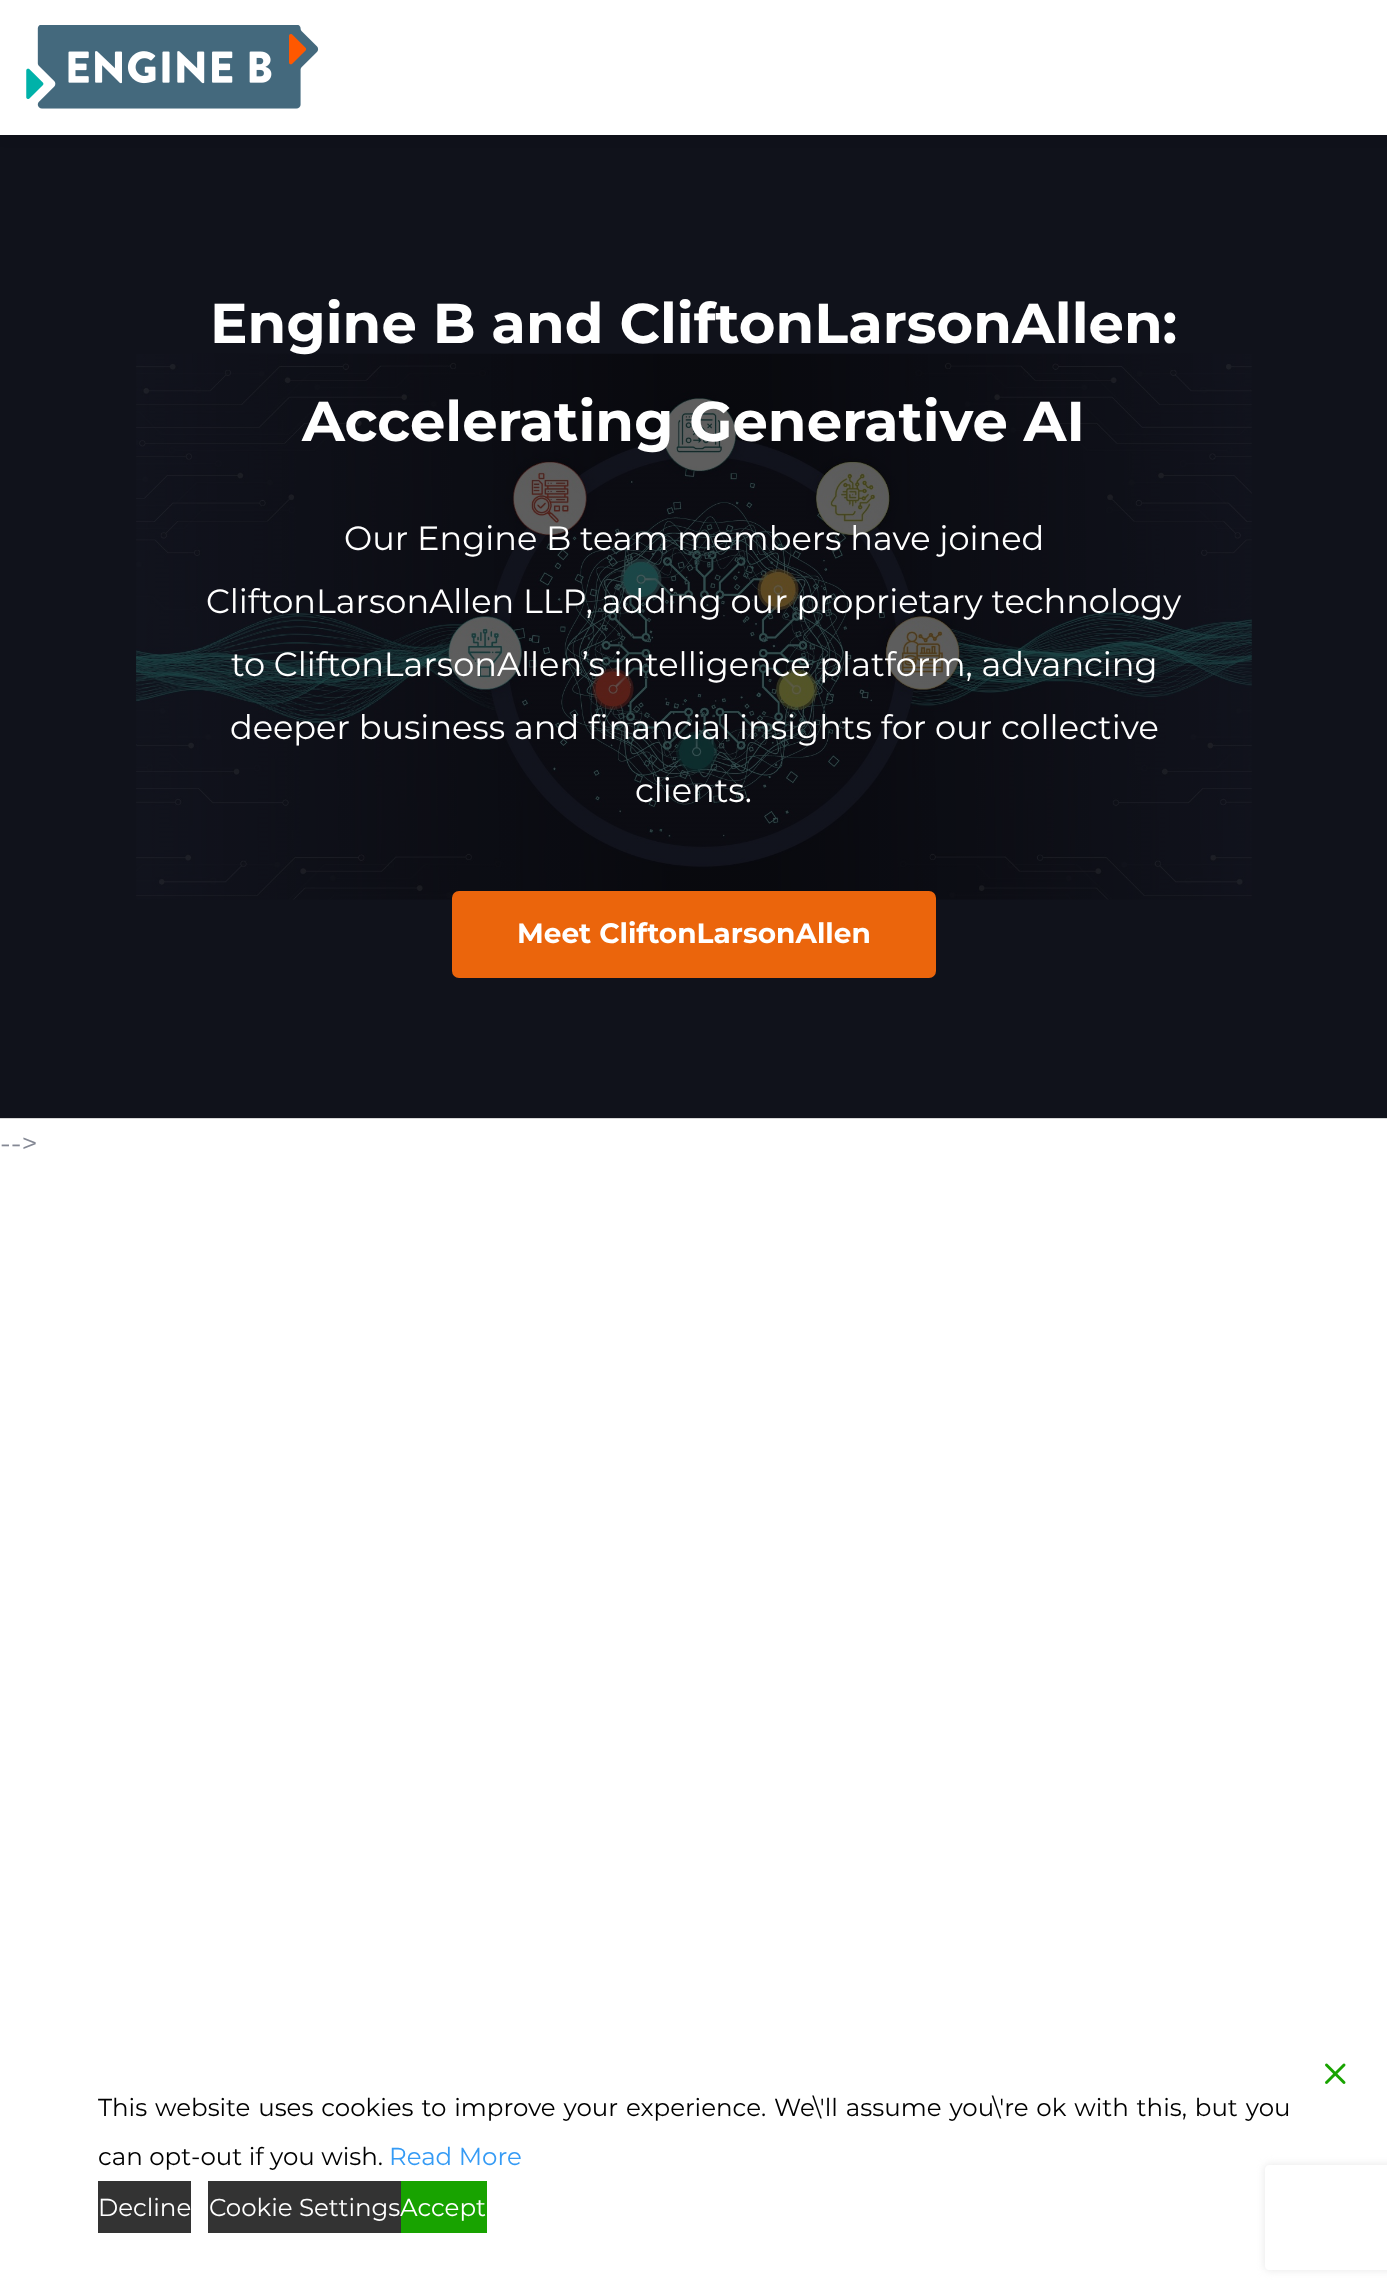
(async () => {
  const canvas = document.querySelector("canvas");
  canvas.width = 1387;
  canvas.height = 2294;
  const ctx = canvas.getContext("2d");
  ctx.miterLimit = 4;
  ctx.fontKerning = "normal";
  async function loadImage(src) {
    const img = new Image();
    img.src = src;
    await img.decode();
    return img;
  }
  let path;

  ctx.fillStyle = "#ffffff";
  ctx.fillRect(0, 0, 1387, 2294);
  ctx.drawImage(await loadImage("img/2.png"), 0, 135, 1387, 984);
  ctx.fillStyle = "rgba(0, 0, 0, 0.4)";
  ctx.filter = "blur(9px)";
  ctx.beginPath();
  ctx.rect(0, -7, 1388, 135);
  ctx.fill();
  ctx.filter = "none";
  ctx.fillStyle = "#ffffff";
  ctx.fillRect(0, 0, 1387, 135);
  ctx.drawImage(await loadImage("img/1.png"), 26, 25, 293, 84);
  ctx.fillStyle = "#eb650c";
  ctx.beginPath();
  ctx.roundRect(453, 892, 482, 85, 6);
  ctx.fill();
  ctx.strokeStyle = "#eb650c";
  ctx.lineWidth = 2;
  ctx.stroke();
  ctx.drawImage(await loadImage("img/3.png"), 1325, 2063, 21, 21);
  for (const [x, y, w, h, color] of [
    [98, 2181, 93, 52, "#333333"],
    [208, 2181, 193, 52, "#333333"],
    [401, 2181, 86, 52, "#18a300"],
  ]) {
    ctx.fillStyle = color;
    ctx.fillRect(x, y, w, h);
  }
  ctx.save();
  path = new Path2D("M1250 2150H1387V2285H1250ZM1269 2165H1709C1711 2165 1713 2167 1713 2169V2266C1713 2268 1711 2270 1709 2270H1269C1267 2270 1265 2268 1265 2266V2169C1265 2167 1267 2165 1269 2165Z");
  ctx.clip(path, "evenodd");
  ctx.fillStyle = "#e6e6e6";
  ctx.filter = "blur(4.5px)";
  ctx.beginPath();
  ctx.roundRect(1265, 2165, 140, 105, 4);
  ctx.fill();
  ctx.filter = "none";
  ctx.restore();
  ctx.font = "bold 56px Montserrat";
  ctx.fillStyle = "#ffffff";
  ctx.fillText("Engine B and CliftonLarsonAllen:", 210, 343);
  ctx.fillText("Accelerating Generative AI", 302, 441);
  ctx.font = "33.6px Montserrat";
  for (const [text, x, y] of [
    ["Our Engine B team members have joined", 344, 550],
    ["CliftonLarsonAllen LLP, adding our proprietary technology", 206, 613],
    ["to CliftonLarsonAllen’s intelligence platform, advancing", 231, 676],
    ["deeper business and financial insights for our collective", 230, 739],
    ["clients.", 635, 802],
  ]) {
    ctx.fillText(text, x, y);
  }
  ctx.font = "bold 28px Montserrat";
  ctx.fillText("Meet CliftonLarsonAllen", 517, 943);
  ctx.font = "28px Montserrat";
  ctx.fillStyle = "#848894";
  ctx.fillText("-->", 0, 1153);
  ctx.wordSpacing = "1.5px";
  ctx.font = "24.5px Montserrat";
  ctx.fillStyle = "#000000";
  ctx.fillText("This website uses cookies to improve your experience. We\\'ll assume you\\'re ok with this, but you", 98, 2116);
  ctx.wordSpacing = "0px";
  ctx.fillText("can opt-out if you wish.", 98, 2165);
  ctx.fillStyle = "#359bf5";
  ctx.fillText("Read More", 389, 2165);
  ctx.fillStyle = "#ffffff";
  for (const [text, x, y] of [
    ["Decline", 98, 2216],
    ["Cookie Settings", 209, 2216],
    ["Accept", 400, 2216],
  ]) {
    ctx.fillText(text, x, y);
  }
})();
